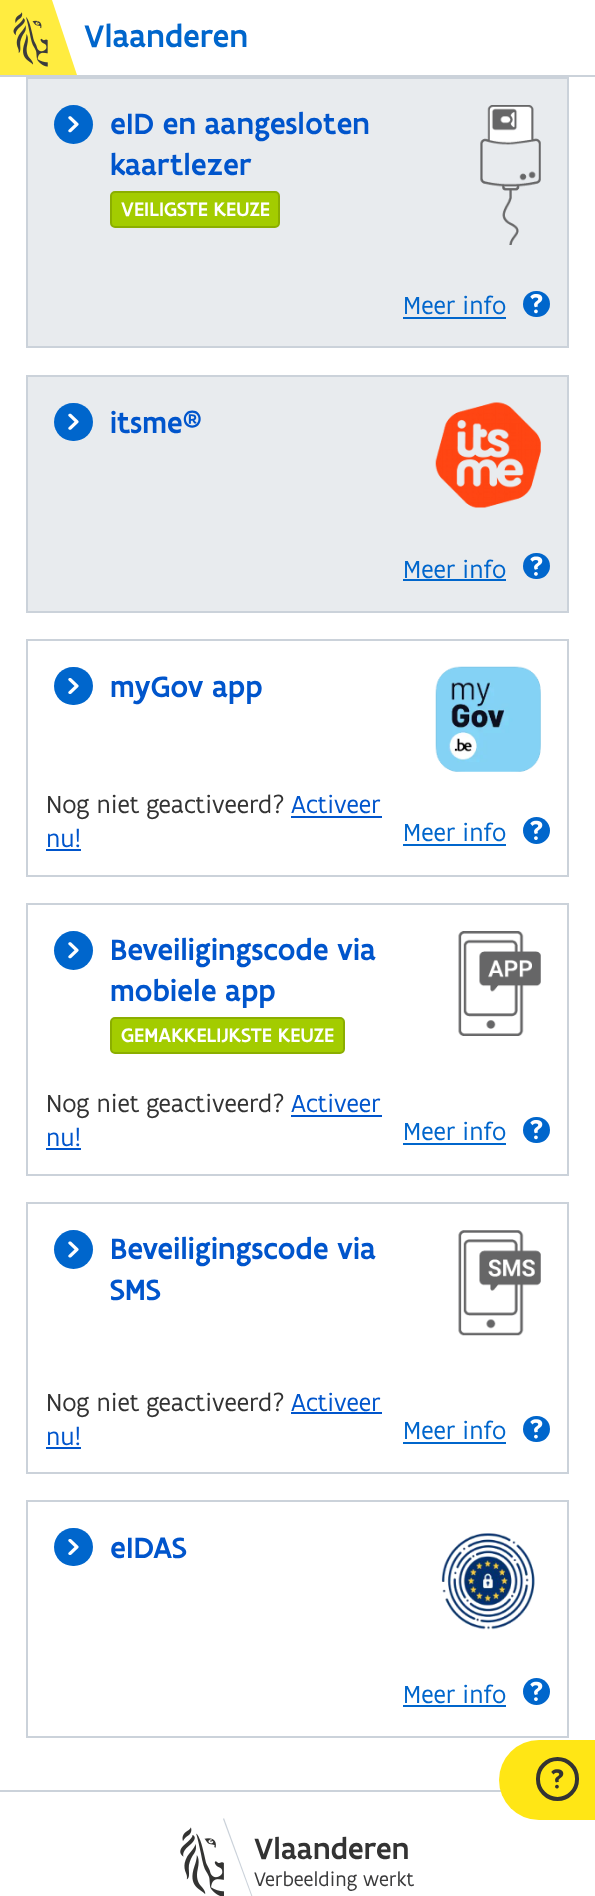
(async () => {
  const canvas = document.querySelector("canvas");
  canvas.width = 595;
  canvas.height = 1896;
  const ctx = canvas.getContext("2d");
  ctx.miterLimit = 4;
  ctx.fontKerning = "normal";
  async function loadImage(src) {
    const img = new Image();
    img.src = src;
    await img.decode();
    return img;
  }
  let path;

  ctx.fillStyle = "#ffffff";
  ctx.fillRect(0, 0, 595, 1896);
  ctx.fillStyle = "#cbd2da";
  ctx.fillRect(0, 75, 595, 2);
  ctx.fillStyle = "#ffec40";
  ctx.fillRect(0, 0, 77, 75);
  ctx.drawImage(await loadImage("img/1.png"), 13, 12, 35, 55);
  ctx.fillStyle = "#ffffff";
  path = new Path2D("M52 0H77V75Z");
  ctx.fill(path);
  ctx.fillStyle = "#e8ebee";
  ctx.beginPath();
  ctx.rect(27, 78, 541, 269);
  ctx.fill();
  ctx.strokeStyle = "#cbd2da";
  ctx.lineWidth = 2;
  ctx.stroke();
  ctx.fillStyle = "#0066cc";
  ctx.beginPath();
  ctx.arc(73.5, 124.5, 19.5, 0, Math.PI * 2);
  ctx.fill();
  ctx.drawImage(await loadImage("img/2.png"), 68, 116, 11, 17);
  ctx.fillStyle = "#a3cc00";
  ctx.beginPath();
  ctx.roundRect(111, 192, 168, 35, 4);
  ctx.fill();
  ctx.strokeStyle = "#8bae00";
  ctx.stroke();
  ctx.drawImage(await loadImage("img/3.png"), 480, 105, 61, 140);
  ctx.fillStyle = "#0066cc";
  ctx.fillRect(403, 317, 103, 2);
  ctx.beginPath();
  ctx.roundRect(523, 291, 27, 26, 13);
  ctx.fill();
  ctx.drawImage(await loadImage("img/4.png"), 530, 294, 13, 20);
  ctx.fillStyle = "#e8ebee";
  ctx.beginPath();
  ctx.rect(27, 376, 541, 236);
  ctx.fill();
  ctx.strokeStyle = "#cbd2da";
  ctx.stroke();
  ctx.fillStyle = "#0066cc";
  ctx.beginPath();
  ctx.roundRect(54, 403, 39, 38, 19);
  ctx.fill();
  ctx.drawImage(await loadImage("img/5.png"), 68, 413, 11, 17);
  ctx.drawImage(await loadImage("img/6.png"), 435, 402, 106, 106);
  ctx.fillRect(403, 579, 103, 2);
  ctx.beginPath();
  ctx.roundRect(523, 553, 27, 26, 13);
  ctx.fill();
  ctx.drawImage(await loadImage("img/7.png"), 530, 556, 13, 20);
  ctx.strokeRect(27, 640, 541, 236);
  ctx.beginPath();
  ctx.roundRect(54, 667, 39, 38, 19);
  ctx.fill();
  ctx.drawImage(await loadImage("img/8.png"), 68, 678, 11, 16);
  ctx.drawImage(await loadImage("img/9.png"), 435, 666, 106, 106);
  for (const [x, y, w, h, color] of [
    [291, 816, 91, 2, "#0055cc"],
    [46, 849, 35, 2, "#0055cc"],
    [403, 844, 103, 2, "#0066cc"],
  ]) {
    ctx.fillStyle = color;
    ctx.fillRect(x, y, w, h);
  }
  ctx.beginPath();
  ctx.arc(536.5, 830.5, 13.5, 0, Math.PI * 2);
  ctx.fill();
  ctx.drawImage(await loadImage("img/10.png"), 530, 820, 13, 20);
  ctx.strokeRect(27, 904, 541, 271);
  ctx.beginPath();
  ctx.arc(73.5, 950.5, 19.5, 0, Math.PI * 2);
  ctx.fill();
  ctx.drawImage(await loadImage("img/2.png"), 68, 942, 11, 17);
  ctx.fillStyle = "#a3cc00";
  ctx.beginPath();
  ctx.roundRect(111, 1018, 233, 35, 4);
  ctx.fill();
  ctx.strokeStyle = "#8bae00";
  ctx.stroke();
  ctx.drawImage(await loadImage("img/11.png"), 458, 931, 83, 105);
  for (const [x, y, w, h, color] of [
    [291, 1115, 91, 2, "#0055cc"],
    [46, 1148, 35, 2, "#0055cc"],
    [403, 1143, 103, 2, "#0066cc"],
  ]) {
    ctx.fillStyle = color;
    ctx.fillRect(x, y, w, h);
  }
  ctx.beginPath();
  ctx.roundRect(523, 1117, 27, 26, 13);
  ctx.fill();
  ctx.drawImage(await loadImage("img/4.png"), 530, 1120, 13, 20);
  ctx.strokeStyle = "#cbd2da";
  ctx.strokeRect(27, 1203, 541, 270);
  ctx.beginPath();
  ctx.arc(73.5, 1249.5, 19.5, 0, Math.PI * 2);
  ctx.fill();
  ctx.drawImage(await loadImage("img/12.png"), 68, 1241, 11, 17);
  ctx.drawImage(await loadImage("img/13.png"), 458, 1230, 83, 106);
  for (const [x, y, w, h, color] of [
    [291, 1412, 91, 2, "#0055cc"],
    [46, 1447, 35, 2, "#0055cc"],
    [403, 1442, 103, 2, "#0066cc"],
  ]) {
    ctx.fillStyle = color;
    ctx.fillRect(x, y, w, h);
  }
  ctx.beginPath();
  ctx.roundRect(523, 1416, 27, 26, 13);
  ctx.fill();
  ctx.drawImage(await loadImage("img/14.png"), 530, 1419, 13, 20);
  ctx.strokeRect(27, 1501, 541, 236);
  ctx.beginPath();
  ctx.roundRect(54, 1528, 39, 38, 19);
  ctx.fill();
  ctx.drawImage(await loadImage("img/8.png"), 68, 1539, 11, 16);
  ctx.drawImage(await loadImage("img/15.png"), 441, 1533, 94, 97);
  ctx.fillRect(403, 1705, 103, 2);
  ctx.beginPath();
  ctx.arc(536.5, 1691.5, 13.5, 0, Math.PI * 2);
  ctx.fill();
  ctx.drawImage(await loadImage("img/10.png"), 530, 1681, 13, 20);
  ctx.fillStyle = "#cbd2da";
  ctx.fillRect(0, 1790, 501, 2);
  ctx.fillStyle = "#ffe615";
  ctx.beginPath();
  ctx.roundRect(499, 1740, 96, 80, [40, 0, 0, 40]);
  ctx.fill();
  ctx.beginPath();
  ctx.roundRect(538, 1759, 39, 40, 19.5);
  ctx.strokeStyle = "#333333";
  ctx.lineWidth = 4;
  ctx.stroke();
  ctx.drawImage(await loadImage("img/16.png"), 551, 1769, 13, 20);
  ctx.drawImage(await loadImage("img/17.png"), 180, 1827, 44, 69);
  ctx.fillStyle = "#cbd2da";
  path = new Path2D("M223 1819L224 1818L256 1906H255Z");
  ctx.fill(path);
  ctx.font = "500 33.25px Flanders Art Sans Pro";
  ctx.fillStyle = "#0066cc";
  ctx.fillText("Vlaanderen", 84, 47);
  ctx.font = "500 31.5px Flanders Art Sans Pro";
  ctx.fillStyle = "#0055cc";
  ctx.fillText("eID en aangesloten", 110, 134);
  ctx.fillText("kaartlezer", 110, 175);
  ctx.font = "500 21px Flanders Art Sans Pro";
  ctx.fillStyle = "#ffffff";
  ctx.fillText("VEILIGSTE KEUZE", 121, 216);
  ctx.font = "26.25px Flanders Art Sans Pro";
  ctx.fillStyle = "#0066cc";
  ctx.fillText("Meer info", 403, 314);
  ctx.font = "500 31.5px Flanders Art Sans Pro";
  ctx.fillStyle = "#0055cc";
  ctx.fillText("itsme®", 110, 433);
  ctx.font = "26.25px Flanders Art Sans Pro";
  ctx.fillStyle = "#0066cc";
  ctx.fillText("Meer info", 403, 578);
  ctx.font = "500 31.5px Flanders Art Sans Pro";
  ctx.fillStyle = "#0055cc";
  ctx.fillText("myGov app", 110, 697);
  ctx.font = "26.25px Flanders Art Sans Pro";
  ctx.fillStyle = "#333333";
  ctx.fillText("Nog niet geactiveerd?", 46, 813);
  ctx.fillStyle = "#0055cc";
  ctx.fillText("Activeer", 291, 813);
  ctx.fillText("nu!", 46, 847);
  ctx.fillStyle = "#0066cc";
  ctx.fillText("Meer info", 403, 841);
  ctx.font = "500 31.5px Flanders Art Sans Pro";
  ctx.fillStyle = "#0055cc";
  ctx.fillText("Beveiligingscode via", 110, 960);
  ctx.fillText("mobiele app", 110, 1001);
  ctx.font = "500 21px Flanders Art Sans Pro";
  ctx.fillStyle = "#ffffff";
  ctx.fillText("GEMAKKELIJKSTE KEUZE", 121, 1042);
  ctx.font = "26.25px Flanders Art Sans Pro";
  ctx.fillStyle = "#333333";
  ctx.fillText("Nog niet geactiveerd?", 46, 1112);
  ctx.fillStyle = "#0055cc";
  ctx.fillText("Activeer", 291, 1112);
  ctx.fillText("nu!", 46, 1146);
  ctx.fillStyle = "#0066cc";
  ctx.fillText("Meer info", 403, 1140);
  ctx.font = "500 31.5px Flanders Art Sans Pro";
  ctx.fillStyle = "#0055cc";
  ctx.fillText("Beveiligingscode via", 110, 1259);
  ctx.fillText("SMS", 110, 1300);
  ctx.font = "26.25px Flanders Art Sans Pro";
  ctx.fillStyle = "#333333";
  ctx.fillText("Nog niet geactiveerd?", 46, 1411);
  ctx.fillStyle = "#0055cc";
  ctx.fillText("Activeer", 291, 1411);
  ctx.fillText("nu!", 46, 1445);
  ctx.fillStyle = "#0066cc";
  ctx.fillText("Meer info", 403, 1439);
  ctx.font = "500 31.5px Flanders Art Sans Pro";
  ctx.fillStyle = "#0055cc";
  ctx.fillText("eIDAS", 110, 1558);
  ctx.font = "26.25px Flanders Art Sans Pro";
  ctx.fillStyle = "#0066cc";
  ctx.fillText("Meer info", 403, 1703);
  ctx.font = "500 31.5px Flanders Art Sans Pro";
  ctx.fillStyle = "#333333";
  ctx.fillText("Vlaanderen", 254, 1859);
  ctx.font = "21px Flanders Art Sans Pro";
  ctx.fillStyle = "#3b3b3c";
  ctx.fillText("Verbeelding werkt", 254, 1886);
})();
